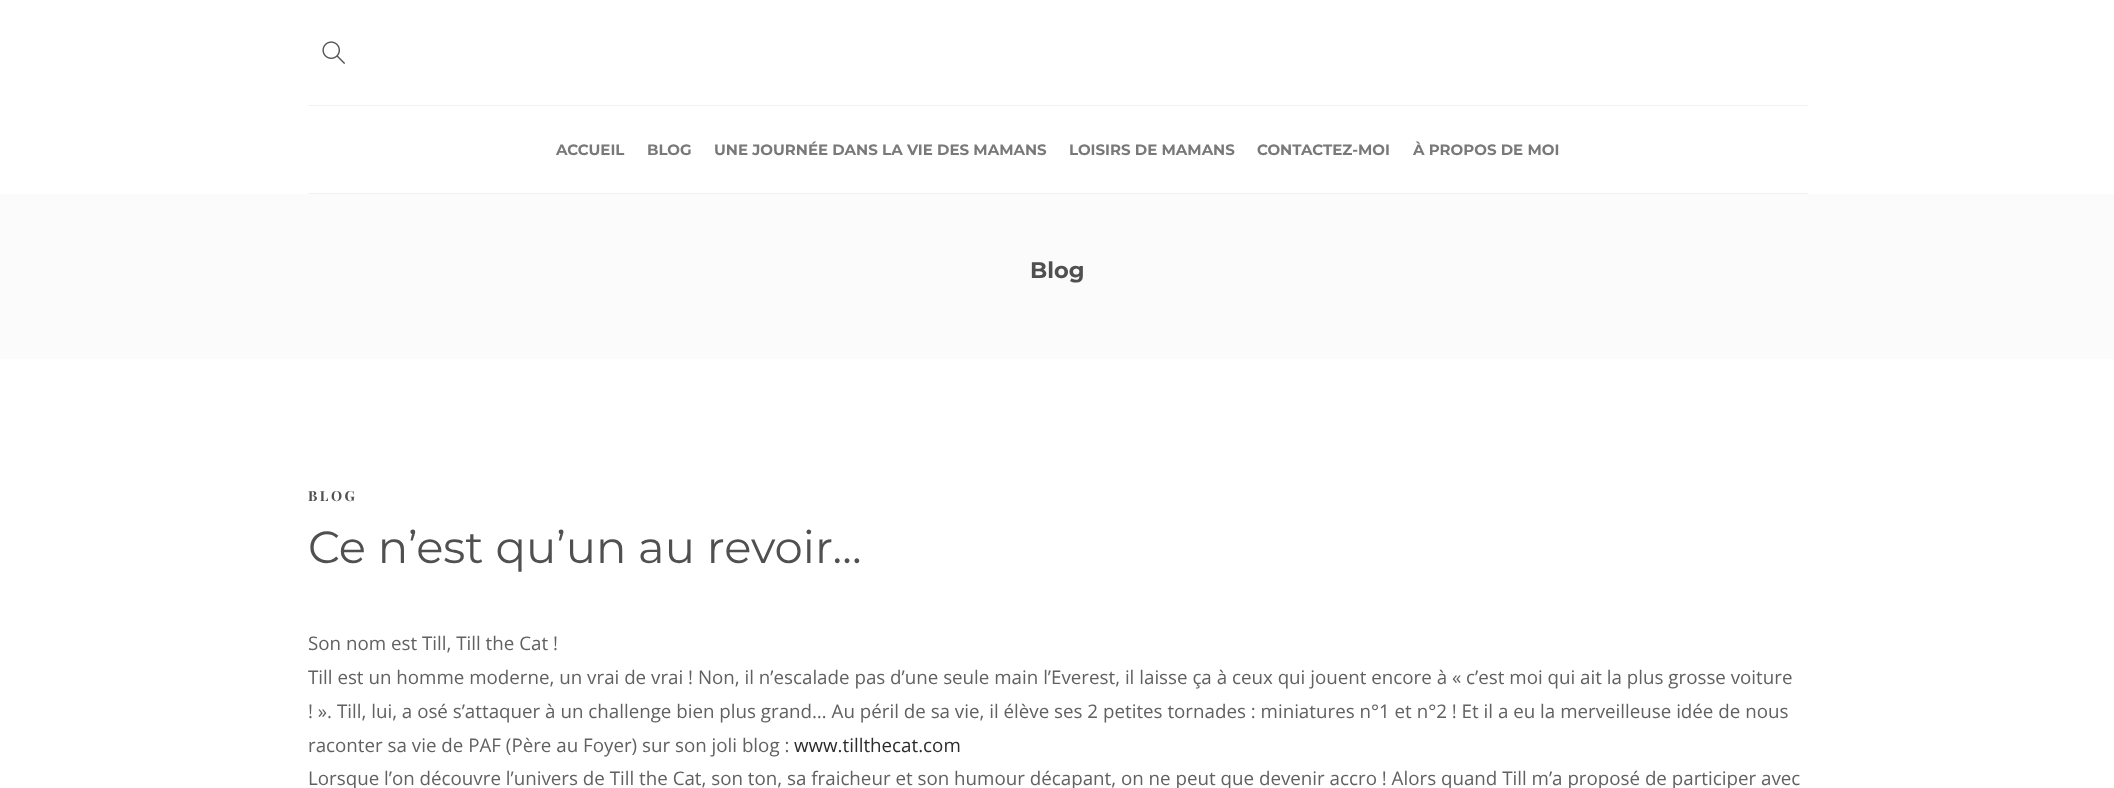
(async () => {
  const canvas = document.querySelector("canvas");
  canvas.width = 2114;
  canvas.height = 788;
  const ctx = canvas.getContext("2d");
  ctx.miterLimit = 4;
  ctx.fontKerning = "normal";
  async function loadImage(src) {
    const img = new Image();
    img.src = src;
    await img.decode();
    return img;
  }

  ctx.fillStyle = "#ffffff";
  ctx.fillRect(0, 0, 2114, 788);
  ctx.drawImage(await loadImage("img/1.png"), 322, 41, 23, 23);
  for (const [x, y, w, h, color] of [
    [308, 105, 1500, 1, "#f1f1f1"],
    [308, 193, 1500, 1, "#f1f1f1"],
    [0, 194, 2114, 165, "#fbfbfb"],
  ]) {
    ctx.fillStyle = color;
    ctx.fillRect(x, y, w, h);
  }
  ctx.font = "bold 15px Montserrat";
  ctx.fillStyle = "#797979";
  for (const [text, x, y] of [
    ["ACCUEIL", 556, 155],
    ["BLOG", 647, 155],
    ["UNE JOURNÉE DANS LA VIE DES MAMANS", 714, 155],
    ["LOISIRS DE MAMANS", 1069, 155],
    ["CONTACTEZ-MOI", 1257, 155],
    ["À PROPOS DE MOI", 1413, 155],
  ]) {
    ctx.fillText(text, x, y);
  }
  ctx.font = "bold 22.5px Montserrat";
  ctx.fillStyle = "#505050";
  ctx.fillText("Blog", 1030, 278);
  ctx.letterSpacing = "2.5px";
  ctx.font = "bold 14px Playfair Display";
  ctx.fillText("BLOG", 308, 501);
  ctx.letterSpacing = "0px";
  ctx.font = "45px Montserrat";
  ctx.fillText("Ce n’est qu’un au revoir…", 308, 563);
  ctx.font = "18.75px Open Sans";
  ctx.fillStyle = "#616161";
  for (const [text, x, y] of [
    ["Son nom est Till, Till the Cat !", 308, 650],
    ["Till est un homme moderne, un vrai de vrai ! Non, il n’escalade pas d’une seule main l’Everest, il laisse ça à ceux qui jouent encore à « c’est moi qui ait la plus grosse voiture", 308, 684],
    ["! ». Till, lui, a osé s’attaquer à un challenge bien plus grand… Au péril de sa vie, il élève ses 2 petites tornades : miniatures n°1 et n°2 ! Et il a eu la merveilleuse idée de nous", 308, 718],
    ["raconter sa vie de PAF (Père au Foyer) sur son joli blog :", 308, 752],
  ]) {
    ctx.fillText(text, x, y);
  }
  ctx.fillStyle = "#2b2b2b";
  ctx.fillText("www.tillthecat.com", 794, 752);
  ctx.fillStyle = "#616161";
  ctx.fillText("Lorsque l’on découvre l’univers de Till the Cat, son ton, sa fraicheur et son humour décapant, on ne peut que devenir accro ! Alors quand Till m’a proposé de participer avec", 308, 785);
})();
